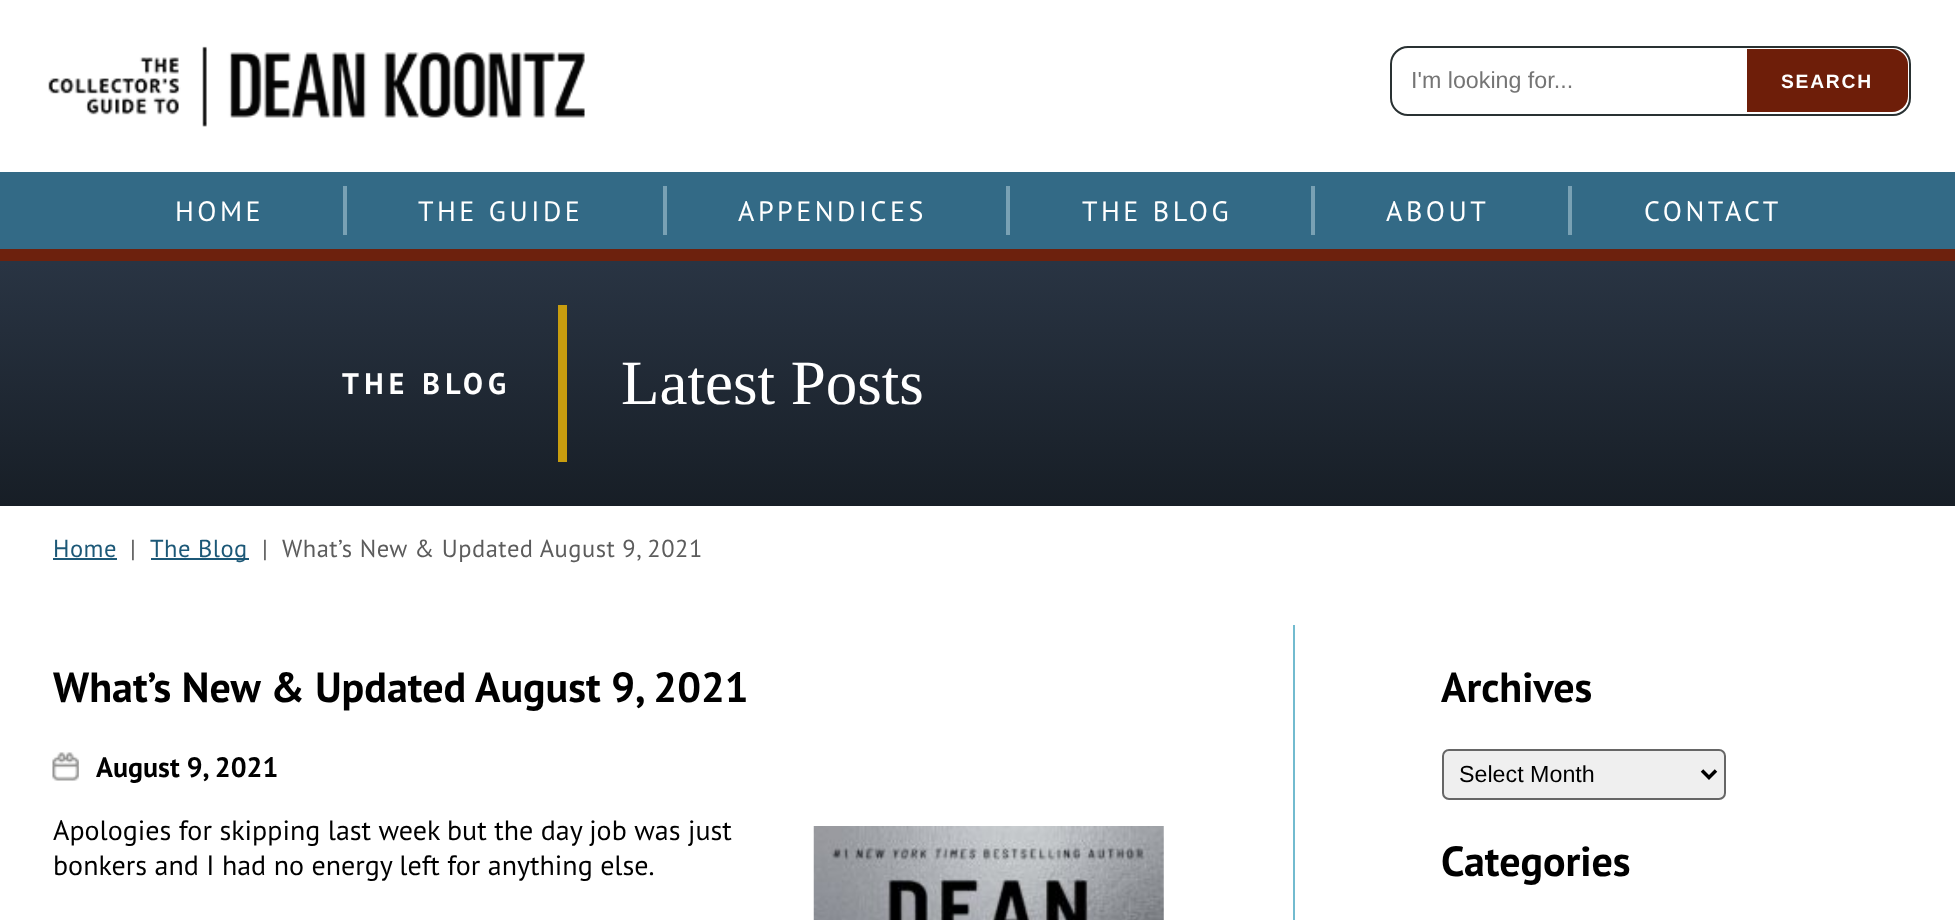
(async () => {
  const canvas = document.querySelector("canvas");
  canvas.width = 1955;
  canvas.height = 920;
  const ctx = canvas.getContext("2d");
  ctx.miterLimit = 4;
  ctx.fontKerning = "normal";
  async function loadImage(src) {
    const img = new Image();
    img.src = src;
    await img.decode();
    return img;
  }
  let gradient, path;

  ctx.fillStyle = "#ffffff";
  ctx.fillRect(0, 0, 1955, 920);
  ctx.drawImage(await loadImage("img/1.png"), 48, 46, 537, 81);
  ctx.beginPath();
  ctx.roundRect(1391, 47, 519, 68, 17);
  ctx.strokeStyle = "#293132";
  ctx.lineWidth = 2;
  ctx.stroke();
  ctx.fillStyle = "#6e1e09";
  ctx.beginPath();
  ctx.roundRect(1747, 49, 161, 63, [0, 16, 16, 0]);
  ctx.fill();
  for (const [x, y, w, h, color] of [
    [0, 172, 1955, 77, "#336a86"],
    [0, 249, 1955, 12, "#6d210d"],
    [343, 186, 4, 49, "#79a1b4"],
    [663, 186, 4, 49, "#79a1b4"],
    [1006, 186, 4, 49, "#79a1b4"],
    [1311, 186, 4, 49, "#79a1b4"],
    [1568, 186, 4, 49, "#79a1b4"],
  ]) {
    ctx.fillStyle = color;
    ctx.fillRect(x, y, w, h);
  }
  gradient = ctx.createLinearGradient(978, 261, 978, 506);
  gradient.addColorStop(0.01, "#293443");
  gradient.addColorStop(1, "#171e26");
  ctx.fillStyle = gradient;
  ctx.fillRect(0, 261, 1955, 245);
  for (const [x, y, w, h, color] of [
    [558, 305, 9, 157, "#c89d0f"],
    [53, 558, 64, 2, "#1c5877"],
    [151, 558, 98, 2, "#1c5877"],
    [1293, 625, 2, 295, "#72bbcf"],
  ]) {
    ctx.fillStyle = color;
    ctx.fillRect(x, y, w, h);
  }
  ctx.drawImage(await loadImage("img/2.png"), 52, 752, 27, 29);
  ctx.drawImage(await loadImage("img/3.png"), 813, 826, 351, 94);
  ctx.fillStyle = "#efefef";
  ctx.beginPath();
  ctx.roundRect(1443, 750, 282, 49, 6);
  ctx.fill();
  ctx.strokeStyle = "#666666";
  ctx.stroke();
  path = new Path2D("M1702 770.5L1709 777.5L1716 770.5");
  ctx.strokeStyle = "#000000";
  ctx.lineWidth = 3.5;
  ctx.stroke(path);
  ctx.font = "23.25px Liberation Sans";
  ctx.fillStyle = "#757575";
  ctx.fillText("I'm looking for...", 1411, 88);
  ctx.letterSpacing = "1.75px";
  ctx.font = "bold 19.25px Liberation Sans";
  ctx.fillStyle = "#ffffff";
  ctx.fillText("SEARCH", 1781, 88);
  ctx.letterSpacing = "3.5px";
  ctx.font = "28px PT Sans";
  for (const [text, x, y] of [
    ["HOME", 175, 221],
    ["THE GUIDE", 418, 221],
    ["APPENDICES", 738, 221],
    ["THE BLOG", 1082, 221],
    ["ABOUT", 1386, 221],
    ["CONTACT", 1644, 221],
  ]) {
    ctx.fillText(text, x, y);
  }
  ctx.letterSpacing = "5.25px";
  ctx.font = "bold 29.75px PT Sans";
  ctx.fillText("THE BLOG", 342, 394);
  ctx.letterSpacing = "0px";
  ctx.font = "63px Liberation Serif";
  ctx.fillText("Latest Posts", 621, 404);
  ctx.letterSpacing = "0.5px";
  ctx.font = "24.5px PT Sans";
  ctx.fillStyle = "#1c5877";
  ctx.fillText("Home", 53, 557);
  ctx.fillStyle = "#5c5c5c";
  ctx.fillText("|", 130, 557);
  ctx.fillStyle = "#1c5877";
  ctx.fillText("The Blog", 150, 557);
  ctx.fillStyle = "#5c5c5c";
  ctx.fillText("|  What’s New & Updated August 9, 2021", 262, 557);
  ctx.letterSpacing = "0px";
  ctx.font = "bold 42px PT Sans";
  ctx.fillStyle = "#000000";
  ctx.fillText("What’s New & Updated August 9, 2021", 53, 702);
  ctx.font = "bold 28px PT Sans";
  ctx.fillText("August 9, 2021", 96, 777);
  ctx.font = "28px PT Sans";
  ctx.fillText("Apologies for skipping last week but the day job was just", 53, 840);
  ctx.fillText("bonkers and I had no energy left for anything else.", 53, 875);
  ctx.font = "bold 42px PT Sans";
  ctx.fillText("Archives", 1441, 702);
  ctx.font = "23.25px Liberation Sans";
  ctx.fillText("Select Month", 1459, 782);
  ctx.font = "bold 42px PT Sans";
  ctx.fillText("Categories", 1441, 876);
})();
